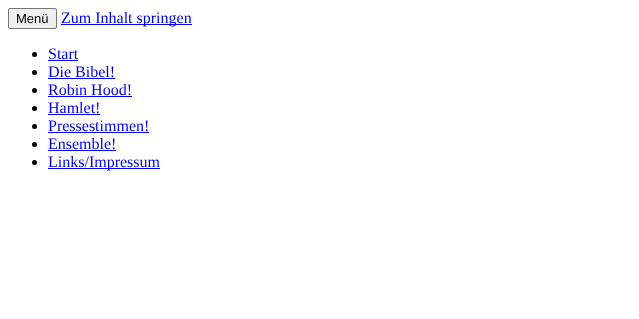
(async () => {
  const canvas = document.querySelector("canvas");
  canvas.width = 639;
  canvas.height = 319;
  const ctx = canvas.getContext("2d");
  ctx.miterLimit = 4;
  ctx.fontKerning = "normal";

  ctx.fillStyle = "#ffffff";
  ctx.fillRect(0, 0, 639, 319);
  ctx.fillStyle = "#efefef";
  ctx.beginPath();
  ctx.roundRect(8.5, 8.5, 48, 20, 1.5);
  ctx.fill();
  ctx.strokeStyle = "#767676";
  ctx.stroke();
  ctx.fillStyle = "#0000ee";
  ctx.fillRect(61, 24, 131, 1);
  ctx.fillStyle = "#000000";
  ctx.beginPath();
  ctx.arc(34.5, 54.5, 2.5, 0, Math.PI * 2);
  ctx.fill();
  ctx.fillStyle = "#0000ee";
  ctx.fillRect(48, 60, 30, 1);
  ctx.fillStyle = "#000000";
  ctx.beginPath();
  ctx.arc(34.5, 72.5, 2.5, 0, Math.PI * 2);
  ctx.fill();
  ctx.fillStyle = "#0000ee";
  ctx.fillRect(48, 78, 67, 1);
  ctx.fillStyle = "#000000";
  ctx.beginPath();
  ctx.arc(34.5, 90.5, 2.5, 0, Math.PI * 2);
  ctx.fill();
  ctx.fillStyle = "#0000ee";
  ctx.fillRect(48, 96, 84, 1);
  ctx.fillStyle = "#000000";
  ctx.beginPath();
  ctx.arc(34.5, 108.5, 2.5, 0, Math.PI * 2);
  ctx.fill();
  ctx.fillStyle = "#0000ee";
  ctx.fillRect(48, 114, 52, 1);
  ctx.fillStyle = "#000000";
  ctx.beginPath();
  ctx.arc(34.5, 126.5, 2.5, 0, Math.PI * 2);
  ctx.fill();
  ctx.fillStyle = "#0000ee";
  ctx.fillRect(48, 132, 101, 1);
  ctx.fillStyle = "#000000";
  ctx.beginPath();
  ctx.arc(34.5, 144.5, 2.5, 0, Math.PI * 2);
  ctx.fill();
  ctx.fillStyle = "#0000ee";
  ctx.fillRect(48, 150, 68, 1);
  ctx.fillStyle = "#000000";
  ctx.beginPath();
  ctx.arc(34.5, 162.5, 2.5, 0, Math.PI * 2);
  ctx.fill();
  ctx.fillStyle = "#0000ee";
  ctx.fillRect(48, 168, 112, 1);
  ctx.font = "13px Liberation Sans";
  ctx.fillStyle = "#000000";
  ctx.fillText("Menü", 16, 23);
  ctx.font = "16px Liberation Serif";
  ctx.fillStyle = "#0000ee";
  for (const [text, x, y] of [
    ["Zum Inhalt springen", 61, 23],
    ["Start", 48, 59],
    ["Die Bibel!", 48, 77],
    ["Robin Hood!", 48, 95],
    ["Hamlet!", 48, 113],
    ["Pressestimmen!", 48, 131],
    ["Ensemble!", 48, 149],
    ["Links/Impressum", 48, 167],
  ]) {
    ctx.fillText(text, x, y);
  }
})();
